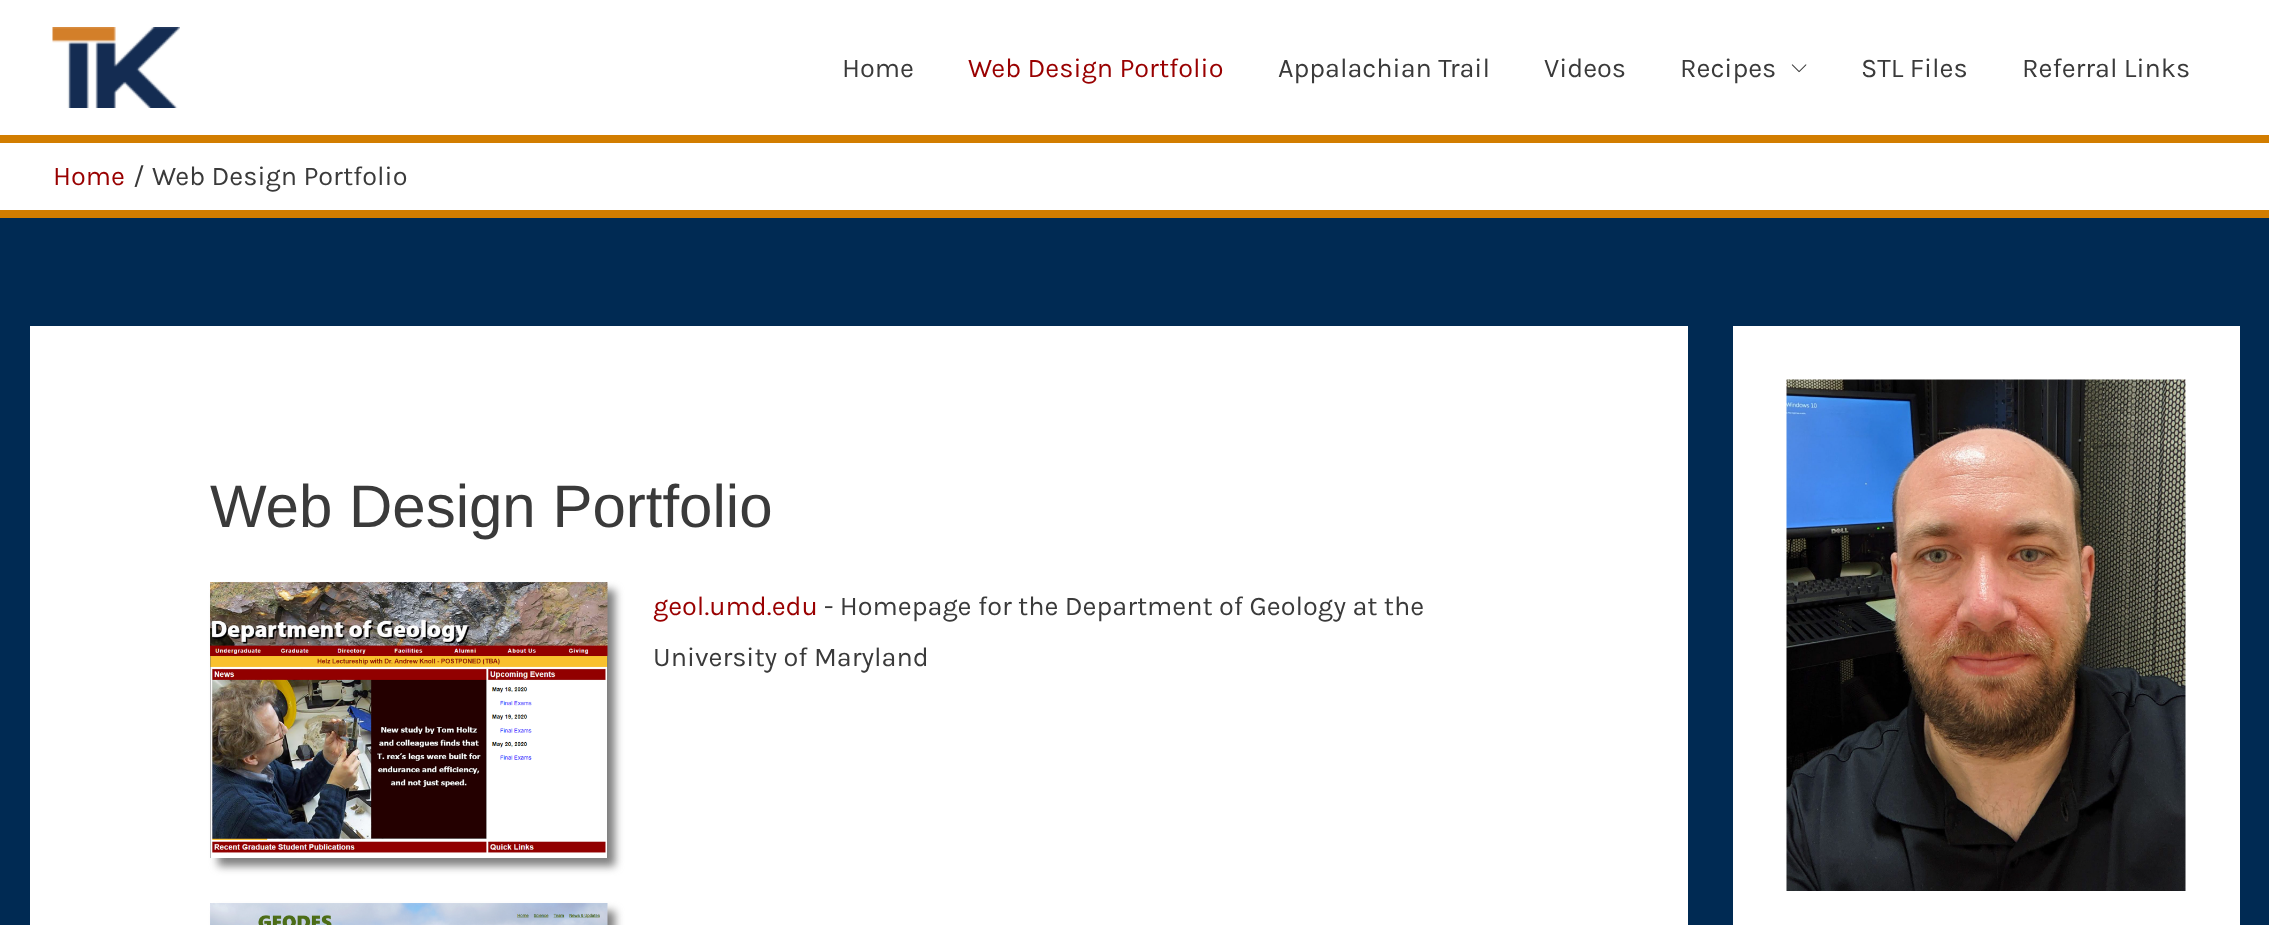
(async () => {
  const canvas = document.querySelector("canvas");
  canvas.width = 2269;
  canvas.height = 925;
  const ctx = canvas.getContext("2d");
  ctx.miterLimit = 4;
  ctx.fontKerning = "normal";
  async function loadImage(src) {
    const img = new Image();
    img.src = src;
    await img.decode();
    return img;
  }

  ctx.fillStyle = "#002a53";
  ctx.fillRect(0, 0, 2269, 925);
  ctx.fillStyle = "#ffffff";
  ctx.fillRect(0, 0, 2269, 135);
  ctx.fillStyle = "#d27d00";
  ctx.fillRect(0, 135, 2269, 8);
  ctx.drawImage(await loadImage("img/1.png"), 52, 27, 128, 81);
  ctx.drawImage(await loadImage("img/2.png"), 1791, 64, 16, 9);
  for (const [x, y, w, h, color] of [
    [0, 143, 2269, 67, "#ffffff"],
    [0, 210, 2269, 8, "#d27d00"],
    [30, 326, 1658, 599, "#ffffff"],
  ]) {
    ctx.fillStyle = color;
    ctx.fillRect(x, y, w, h);
  }
  ctx.fillStyle = "#808080";
  ctx.filter = "blur(4px)";
  ctx.beginPath();
  ctx.rect(218, 590, 397, 276);
  ctx.fill();
  ctx.filter = "none";
  ctx.drawImage(await loadImage("img/3.png"), 210, 582, 398, 276);
  ctx.filter = "blur(4px)";
  ctx.beginPath();
  ctx.rect(218, 911, 397, 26);
  ctx.fill();
  ctx.filter = "none";
  ctx.drawImage(await loadImage("img/4.png"), 210, 903, 398, 22);
  ctx.fillStyle = "#ffffff";
  ctx.fillRect(1733, 326, 507, 599);
  ctx.drawImage(await loadImage("img/5.png"), 1786, 379, 400, 512);
  ctx.font = "27px Karla";
  ctx.fillStyle = "#3a3a3a";
  ctx.fillText("Home", 842, 77);
  ctx.fillStyle = "#990000";
  ctx.fillText("Web Design Portfolio", 968, 77);
  ctx.fillStyle = "#3a3a3a";
  for (const [text, x, y] of [
    ["Appalachian Trail", 1278, 77],
    ["Videos", 1544, 77],
    ["Recipes", 1680, 77],
    ["STL Files", 1861, 77],
    ["Referral Links", 2022, 77],
  ]) {
    ctx.fillText(text, x, y);
  }
  ctx.fillStyle = "#990000";
  ctx.fillText("Home", 53, 185);
  ctx.fillStyle = "#3a3a3a";
  ctx.fillText("/", 133, 185);
  ctx.fillText("Web Design Portfolio", 152, 185);
  ctx.font = "60px Liberation Sans";
  ctx.fillText("Web Design Portfolio", 210, 527);
  ctx.font = "27px Karla";
  ctx.fillStyle = "#990000";
  ctx.fillText("geol.umd.edu", 653, 615);
  ctx.fillStyle = "#3a3a3a";
  ctx.fillText("- Homepage for the Department of Geology at the", 824, 615);
  ctx.fillText("University of Maryland", 653, 666);
})();
